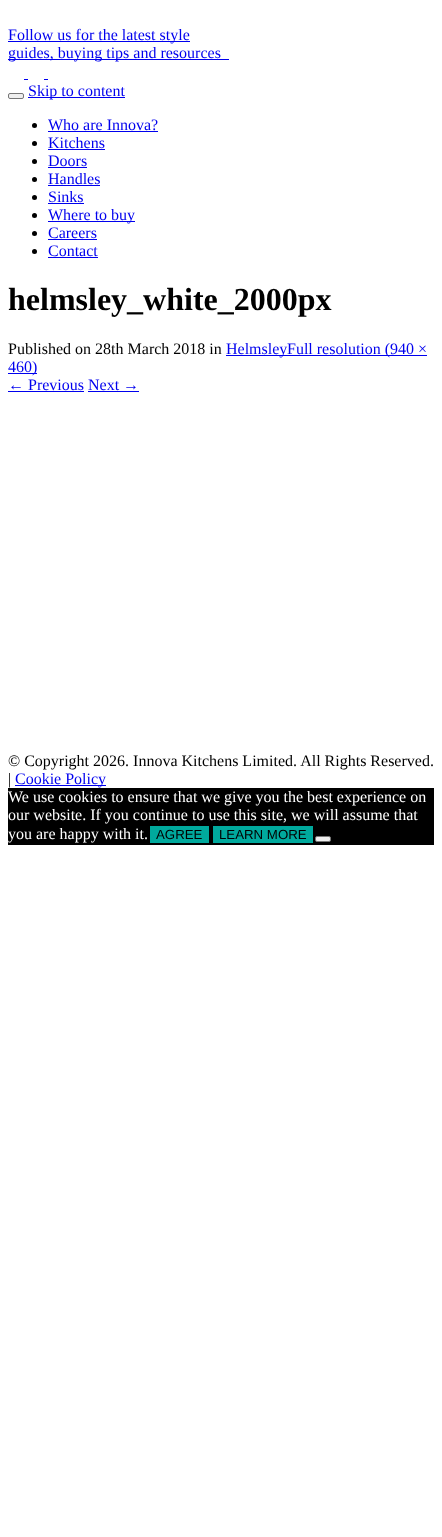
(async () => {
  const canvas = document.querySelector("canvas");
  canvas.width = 442;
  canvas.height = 1537;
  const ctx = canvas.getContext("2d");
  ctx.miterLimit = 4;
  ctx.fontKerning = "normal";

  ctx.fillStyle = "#ffffff";
  ctx.fillRect(0, 0, 442, 1537);
  for (const [x, y, w, h, color] of [
    [8, 41, 182, 1, "#0000ee"],
    [8, 59, 221, 1, "#0000ee"],
    [24, 79, 4, 1, "#0000ee"],
    [44, 79, 4, 1, "#0000ee"],
  ]) {
    ctx.fillStyle = color;
    ctx.fillRect(x, y, w, h);
  }
  ctx.fillStyle = "#efefef";
  ctx.beginPath();
  ctx.roundRect(8.5, 93.5, 15, 5, 1.5);
  ctx.fill();
  ctx.strokeStyle = "#767676";
  ctx.stroke();
  ctx.fillStyle = "#0000ee";
  ctx.fillRect(28, 97, 97, 1);
  ctx.fillStyle = "#000000";
  ctx.beginPath();
  ctx.arc(34.5, 125.5, 2.5, 0, Math.PI * 2);
  ctx.fill();
  ctx.fillStyle = "#0000ee";
  ctx.fillRect(48, 131, 110, 1);
  ctx.fillStyle = "#000000";
  ctx.beginPath();
  ctx.arc(34.5, 143.5, 2.5, 0, Math.PI * 2);
  ctx.fill();
  ctx.fillStyle = "#0000ee";
  ctx.fillRect(48, 149, 57, 1);
  ctx.fillStyle = "#000000";
  ctx.beginPath();
  ctx.arc(34.5, 161.5, 2.5, 0, Math.PI * 2);
  ctx.fill();
  ctx.fillStyle = "#0000ee";
  ctx.fillRect(48, 167, 39, 1);
  ctx.fillStyle = "#000000";
  ctx.beginPath();
  ctx.arc(34.5, 179.5, 2.5, 0, Math.PI * 2);
  ctx.fill();
  ctx.fillStyle = "#0000ee";
  ctx.fillRect(48, 185, 52, 1);
  ctx.fillStyle = "#000000";
  ctx.beginPath();
  ctx.arc(34.5, 197.5, 2.5, 0, Math.PI * 2);
  ctx.fill();
  ctx.fillStyle = "#0000ee";
  ctx.fillRect(48, 203, 36, 1);
  ctx.fillStyle = "#000000";
  ctx.beginPath();
  ctx.arc(34.5, 215.5, 2.5, 0, Math.PI * 2);
  ctx.fill();
  ctx.fillStyle = "#0000ee";
  ctx.fillRect(48, 221, 87, 1);
  ctx.fillStyle = "#000000";
  ctx.beginPath();
  ctx.arc(34.5, 233.5, 2.5, 0, Math.PI * 2);
  ctx.fill();
  ctx.fillStyle = "#0000ee";
  ctx.fillRect(48, 239, 49, 1);
  ctx.fillStyle = "#000000";
  ctx.beginPath();
  ctx.arc(34.5, 251.5, 2.5, 0, Math.PI * 2);
  ctx.fill();
  for (const [x, y, w, h, color] of [
    [48, 257, 50, 1, "#0000ee"],
    [226, 355, 61, 1, "#0000ee"],
    [287, 355, 140, 1, "#0000ee"],
    [8, 373, 29, 1, "#0000ee"],
    [8, 391, 76, 1, "#0000ee"],
    [88, 391, 51, 1, "#0000ee"],
    [15, 785, 91, 1, "#0000ee"],
    [8, 788, 426, 57, "#000000"],
    [150, 826, 59, 17, "#00a99d"],
    [213, 826, 100, 17, "#00a99d"],
  ]) {
    ctx.fillStyle = color;
    ctx.fillRect(x, y, w, h);
  }
  ctx.fillStyle = "#efefef";
  ctx.beginPath();
  ctx.roundRect(315.5, 836.5, 15, 5, 1.5);
  ctx.fill();
  ctx.stroke();
  ctx.font = "16px Liberation Serif";
  ctx.fillStyle = "#0000ee";
  for (const [text, x, y] of [
    ["Follow us for the latest style", 8, 40],
    ["guides, buying tips and resources", 8, 58],
    ["Skip to content", 28, 96],
    ["Who are Innova?", 48, 130],
    ["Kitchens", 48, 148],
    ["Doors", 48, 166],
    ["Handles", 48, 184],
    ["Sinks", 48, 202],
    ["Where to buy", 48, 220],
    ["Careers", 48, 238],
    ["Contact", 48, 256],
  ]) {
    ctx.fillText(text, x, y);
  }
  ctx.font = "bold 32px Liberation Serif";
  ctx.fillStyle = "#000000";
  ctx.fillText("helmsley_white_2000px", 8, 310);
  ctx.font = "16px Liberation Serif";
  ctx.fillText("Published on 28th March 2018 in", 8, 354);
  ctx.fillStyle = "#0000ee";
  for (const [text, x, y] of [
    ["Helmsley", 226, 354],
    ["Full resolution (940 ×", 287, 354],
    ["460)", 8, 372],
    ["← Previous Next →", 8, 390],
  ]) {
    ctx.fillText(text, x, y);
  }
  ctx.fillStyle = "#000000";
  ctx.fillText("© Copyright 2026. Innova Kitchens Limited. All Rights Reserved.", 8, 766);
  ctx.fillText("|", 8, 784);
  ctx.fillStyle = "#0000ee";
  ctx.fillText("Cookie Policy", 15, 784);
  ctx.fillStyle = "#ffffff";
  for (const [text, x, y] of [
    ["We use cookies to ensure that we give you the best experience on", 8, 802],
    ["our website. If you continue to use this site, we will assume that", 8, 820],
    ["you are happy with it.", 8, 839],
  ]) {
    ctx.fillText(text, x, y);
  }
  ctx.font = "13.25px Liberation Sans";
  ctx.fillStyle = "#000000";
  ctx.fillText("AGREE", 156, 839);
  ctx.fillText("LEARN MORE", 219, 839);
})();
